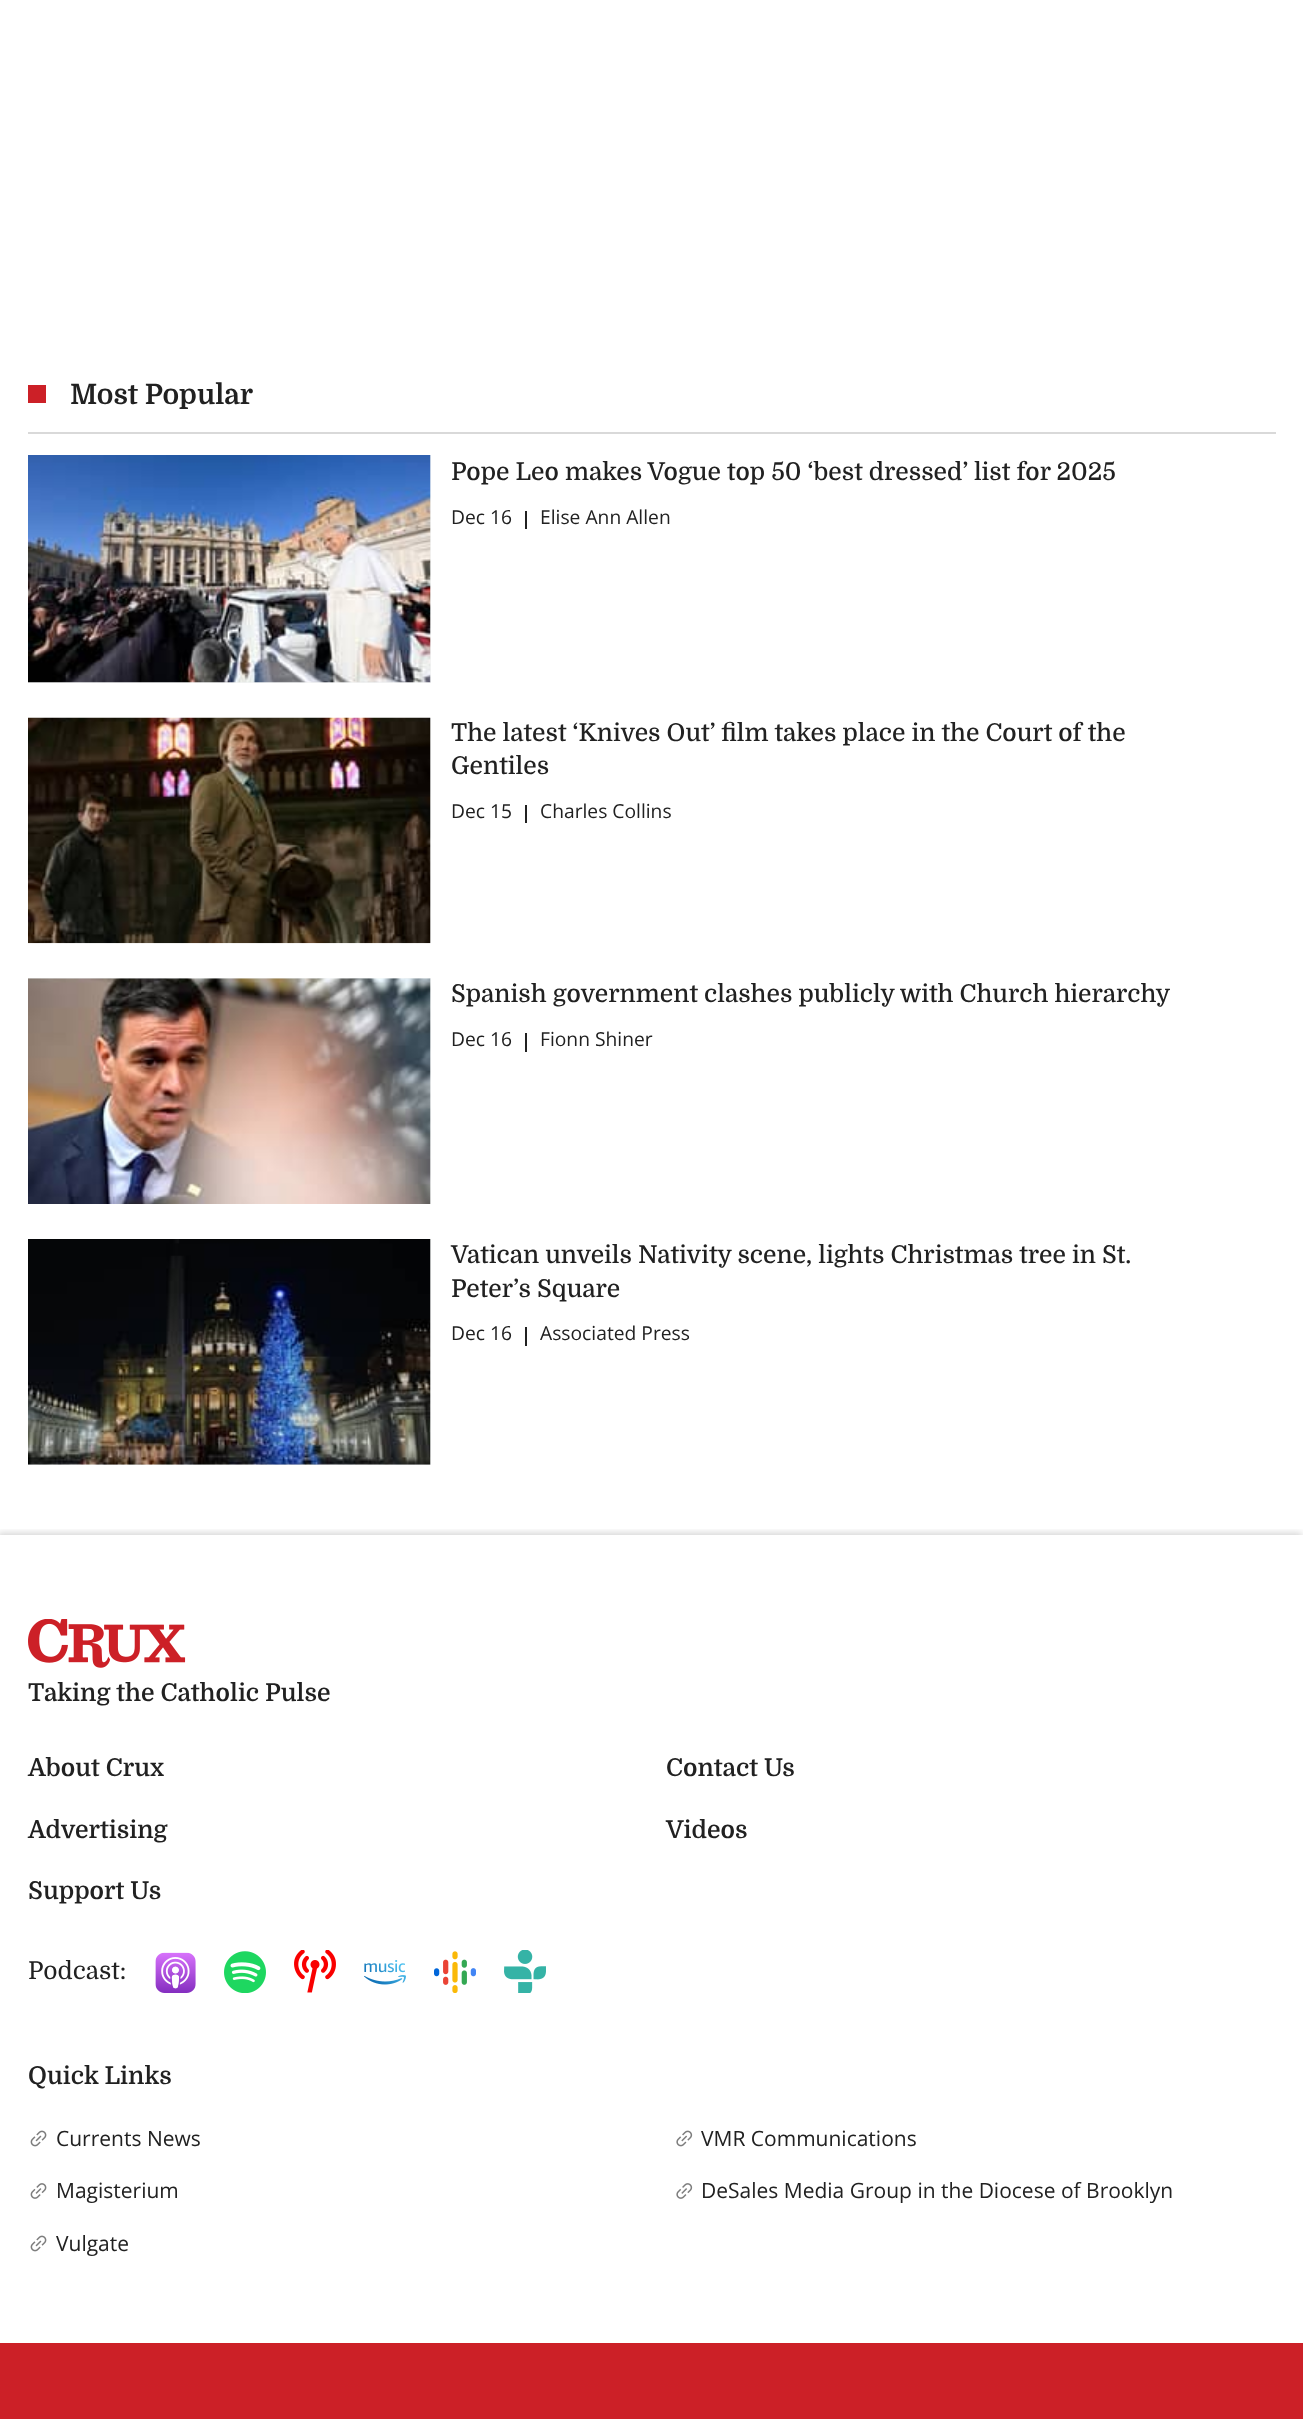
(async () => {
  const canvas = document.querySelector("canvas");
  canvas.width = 1303;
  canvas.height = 2419;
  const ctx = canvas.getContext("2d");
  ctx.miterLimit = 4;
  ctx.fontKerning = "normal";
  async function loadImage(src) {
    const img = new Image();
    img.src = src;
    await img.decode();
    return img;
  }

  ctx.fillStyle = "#ffffff";
  ctx.fillRect(0, 0, 1303, 2419);
  for (const [x, y, w, h, color] of [
    [28, 432, 1248, 2, "#d9d9d9"],
    [28, 385, 18, 18, "#cc2027"],
    [28, 455, 403, 228, "#f2f3f3"],
  ]) {
    ctx.fillStyle = color;
    ctx.fillRect(x, y, w, h);
  }
  ctx.drawImage(await loadImage("img/1.png"), 28, 455, 403, 228);
  ctx.fillStyle = "#212121";
  ctx.fillRect(525, 511, 2, 18);
  ctx.fillStyle = "#f2f3f3";
  ctx.fillRect(430, 718, 1, 225);
  ctx.drawImage(await loadImage("img/2.png"), 28, 717, 403, 227);
  ctx.fillStyle = "#212121";
  ctx.fillRect(525, 805, 2, 18);
  ctx.fillStyle = "#f2f3f3";
  ctx.fillRect(28, 978, 403, 226);
  ctx.drawImage(await loadImage("img/3.png"), 28, 978, 403, 226);
  ctx.fillStyle = "#212121";
  ctx.fillRect(525, 1033, 2, 19);
  ctx.fillStyle = "#f2f3f3";
  ctx.fillRect(28, 1239, 403, 226);
  ctx.drawImage(await loadImage("img/4.png"), 28, 1239, 403, 226);
  ctx.fillStyle = "#212121";
  ctx.fillRect(525, 1327, 2, 19);
  ctx.save();
  ctx.beginPath();
  ctx.rect(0, 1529, 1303, 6);
  ctx.clip();
  ctx.fillStyle = "rgba(0, 0, 0, 0.17)";
  ctx.filter = "blur(3.5px)";
  ctx.beginPath();
  ctx.rect(-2, 1533, 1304, 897);
  ctx.fill();
  ctx.filter = "none";
  ctx.restore();
  ctx.drawImage(await loadImage("img/5.png"), 28, 1619, 158, 49);
  ctx.drawImage(await loadImage("img/6.png"), 155, 1952, 41, 41);
  ctx.drawImage(await loadImage("img/7.png"), 224, 1951, 42, 42);
  ctx.drawImage(await loadImage("img/8.png"), 294, 1950, 42, 43);
  ctx.drawImage(await loadImage("img/9.png"), 364, 1960, 42, 25);
  ctx.drawImage(await loadImage("img/10.png"), 434, 1951, 42, 42);
  ctx.drawImage(await loadImage("img/11.png"), 504, 1950, 42, 43);
  ctx.drawImage(await loadImage("img/12.png"), 30, 2130, 17, 17);
  ctx.drawImage(await loadImage("img/13.png"), 676, 2130, 17, 17);
  ctx.drawImage(await loadImage("img/14.png"), 30, 2183, 17, 16);
  ctx.drawImage(await loadImage("img/15.png"), 676, 2183, 17, 16);
  ctx.drawImage(await loadImage("img/12.png"), 30, 2235, 17, 17);
  ctx.fillStyle = "#cc2027";
  ctx.fillRect(0, 2343, 1303, 76);
  ctx.font = "bold 28px Domine";
  ctx.fillStyle = "#212121";
  ctx.fillText("Most Popular", 70, 404);
  ctx.font = "500 24.5px Domine";
  ctx.fillText("Pope Leo makes Vogue top 50 ‘best dressed’ list for 2025", 451, 480);
  ctx.font = "19.25px Open Sans";
  ctx.fillText("Dec 16", 451, 524);
  ctx.fillText("Elise Ann Allen", 540, 524);
  ctx.font = "500 24.5px Domine";
  ctx.fillText("The latest ‘Knives Out’ film takes place in the Court of the", 451, 741);
  ctx.fillText("Gentiles", 451, 774);
  ctx.font = "19.25px Open Sans";
  ctx.fillText("Dec 15", 451, 818);
  ctx.fillText("Charles Collins", 540, 818);
  ctx.font = "500 24.5px Domine";
  ctx.fillText("Spanish government clashes publicly with Church hierarchy", 451, 1002);
  ctx.font = "19.25px Open Sans";
  ctx.fillText("Dec 16", 451, 1046);
  ctx.fillText("Fionn Shiner", 540, 1046);
  ctx.font = "500 24.5px Domine";
  ctx.fillText("Vatican unveils Nativity scene, lights Christmas tree in St.", 451, 1263);
  ctx.fillText("Peter’s Square", 451, 1297);
  ctx.font = "19.25px Open Sans";
  ctx.fillText("Dec 16", 451, 1340);
  ctx.fillText("Associated Press", 540, 1340);
  ctx.font = "600 24.5px Domine";
  for (const [text, x, y] of [
    ["Taking the Catholic Pulse", 28, 1701],
    ["About Crux", 28, 1776],
    ["Contact Us", 666, 1776],
    ["Advertising", 28, 1838],
    ["Videos", 666, 1838],
    ["Support Us", 28, 1899],
  ]) {
    ctx.fillText(text, x, y);
  }
  ctx.font = "24.5px Domine";
  ctx.fillText("Podcast:", 28, 1979);
  ctx.font = "600 24.5px Domine";
  ctx.fillText("Quick Links", 28, 2084);
  ctx.font = "21px Open Sans";
  for (const [text, x, y] of [
    ["Currents News", 56, 2146],
    ["VMR Communications", 701, 2146],
    ["Magisterium", 56, 2198],
    ["DeSales Media Group in the Diocese of Brooklyn", 701, 2198],
    ["Vulgate", 56, 2251],
  ]) {
    ctx.fillText(text, x, y);
  }
})();
